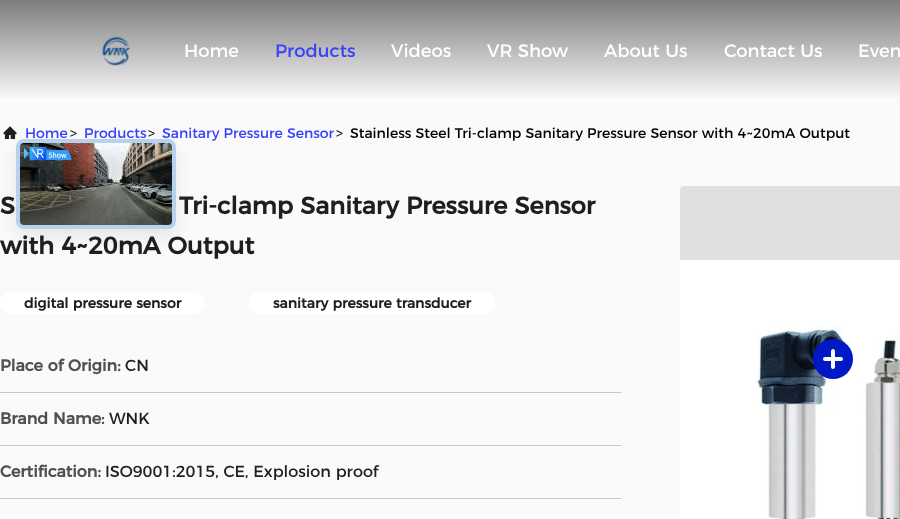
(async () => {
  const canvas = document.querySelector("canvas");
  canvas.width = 900;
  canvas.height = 519;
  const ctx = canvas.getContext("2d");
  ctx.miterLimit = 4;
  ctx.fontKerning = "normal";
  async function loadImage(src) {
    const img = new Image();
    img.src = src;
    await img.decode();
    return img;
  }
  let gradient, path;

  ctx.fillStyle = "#fafafa";
  ctx.fillRect(0, 0, 900, 519);
  gradient = ctx.createLinearGradient(450, 0, 450, 100);
  gradient.addColorStop(0, "#7d7d7d");
  gradient.addColorStop(1, "#fafafa");
  ctx.fillStyle = gradient;
  ctx.fillRect(0, 0, 900, 98);
  ctx.drawImage(await loadImage("img/1.png"), 101, 36, 29, 30);
  ctx.drawImage(await loadImage("img/4.png"), 3, 126, 14, 13);
  ctx.fillStyle = "rgba(0, 0, 0, 0.08)";
  ctx.filter = "blur(8px)";
  ctx.beginPath();
  ctx.roundRect(16, 147, 160, 90, 8);
  ctx.fill();
  ctx.filter = "none";
  ctx.fillStyle = "#ffffff";
  ctx.beginPath();
  ctx.roundRect(0, 292, 205, 22, 11);
  ctx.fill();
  ctx.beginPath();
  ctx.roundRect(249, 292, 246, 22, 11);
  ctx.fill();
  for (const [x, y, w, h, color] of [
    [0, 392, 621, 1, "#c8c8c8"],
    [0, 445, 621, 1, "#c8c8c8"],
    [0, 498, 621, 1, "#c8c8c8"],
  ]) {
    ctx.fillStyle = color;
    ctx.fillRect(x, y, w, h);
  }
  ctx.save();
  ctx.beginPath();
  ctx.rect(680, 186, 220, 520);
  ctx.clip();
  path = new Path2D("M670 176H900V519H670ZM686 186H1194C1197.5 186 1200 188.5 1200 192V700C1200 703.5 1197.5 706 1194 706H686C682.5 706 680 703.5 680 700V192C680 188.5 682.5 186 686 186Z");
  ctx.clip(path, "evenodd");
  ctx.fillStyle = "rgba(0, 0, 0, 0.15)";
  ctx.filter = "blur(3px)";
  ctx.beginPath();
  ctx.roundRect(680, 186, 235, 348, 6);
  ctx.fill();
  ctx.filter = "none";
  ctx.restore();
  ctx.fillStyle = "rgba(0, 0, 0, 0.1)";
  path = new Path2D("M686 186H900V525H686C682.5 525 680 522.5 680 519V192C680 188.5 682.5 186 686 186Z");
  ctx.fill(path);
  ctx.drawImage(await loadImage("img/5.png"), 680, 260, 220, 259);
  ctx.fillStyle = "#0018c6";
  ctx.beginPath();
  ctx.arc(833, 359, 20, 0, Math.PI * 2);
  ctx.fill();
  ctx.fillStyle = "#ffffff";
  ctx.beginPath();
  ctx.roundRect(823, 357, 20, 4, 2);
  ctx.fill();
  path = new Path2D("M835 351V367C835 368 834 369 833 369C832 369 831 368 831 367V351C831 350 832 349 833 349C834 349 835 350 835 351Z");
  ctx.fill(path);
  ctx.font = "18px Montserrat";
  ctx.fillText("Home", 184, 57);
  ctx.fillStyle = "#3742fa";
  ctx.fillText("Products", 275, 57);
  ctx.fillStyle = "#ffffff";
  for (const [text, x, y] of [
    ["Videos", 391, 57],
    ["VR Show", 487, 57],
    ["About Us", 604, 57],
    ["Contact Us", 724, 57],
    ["Even", 858, 57],
  ]) {
    ctx.fillText(text, x, y);
  }
  ctx.font = "14px Montserrat";
  ctx.fillStyle = "#3742fa";
  ctx.fillText("Home", 25, 138);
  ctx.fillStyle = "#1f1f1f";
  ctx.fillText(">", 70, 138);
  ctx.fillStyle = "#3742fa";
  ctx.fillText("Products", 84, 138);
  ctx.fillStyle = "#1f1f1f";
  ctx.fillText(">", 148, 138);
  ctx.fillStyle = "#3742fa";
  ctx.fillText("Sanitary Pressure Sensor", 162, 138);
  ctx.fillStyle = "#eeeeee";
  ctx.beginPath();
  ctx.roundRect(16, 139, 160, 90, 8);
  ctx.fill();
  ctx.beginPath();
  ctx.roundRect(18, 141, 156, 86, 6);
  ctx.strokeStyle = "rgba(4, 120, 237, 0.24)";
  ctx.lineWidth = 4;
  ctx.stroke();
  ctx.drawImage(await loadImage("img/2.png"), 20, 143, 152, 82);
  ctx.drawImage(await loadImage("img/3.png"), 24, 147, 48, 13);
  ctx.fillStyle = "#1f1f1f";
  ctx.fillText(">", 336, 138);
  ctx.fillStyle = "#000000";
  ctx.fillText("Stainless Steel Tri-clamp Sanitary Pressure Sensor with 4~20mA Output", 350, 138);
  ctx.font = "bold 24px Montserrat";
  ctx.fillStyle = "#1f1f1f";
  for (const [text, x, y] of [
    ["S", 0, 214],
    ["Tri-clamp Sanitary Pressure Sensor", 179, 214],
    ["with 4~20mA Output", 0, 254],
  ]) {
    ctx.fillText(text, x, y);
  }
  ctx.font = "bold 14px Montserrat";
  ctx.fillText("digital pressure sensor", 24, 308);
  ctx.fillText("sanitary pressure transducer", 273, 308);
  ctx.font = "bold 16px Montserrat";
  ctx.fillStyle = "#505050";
  ctx.fillText("Place of Origin:", 0, 371);
  ctx.font = "16px Montserrat";
  ctx.fillStyle = "#1f1f1f";
  ctx.fillText("CN", 125, 371);
  ctx.font = "bold 16px Montserrat";
  ctx.fillStyle = "#505050";
  ctx.fillText("Brand Name:", 0, 424);
  ctx.font = "16px Montserrat";
  ctx.fillStyle = "#1f1f1f";
  ctx.fillText("WNK", 109, 424);
  ctx.font = "bold 16px Montserrat";
  ctx.fillStyle = "#505050";
  ctx.fillText("Certification:", 0, 477);
  ctx.font = "16px Montserrat";
  ctx.fillStyle = "#1f1f1f";
  ctx.fillText("ISO9001:2015, CE, Explosion proof", 105, 477);
})();
